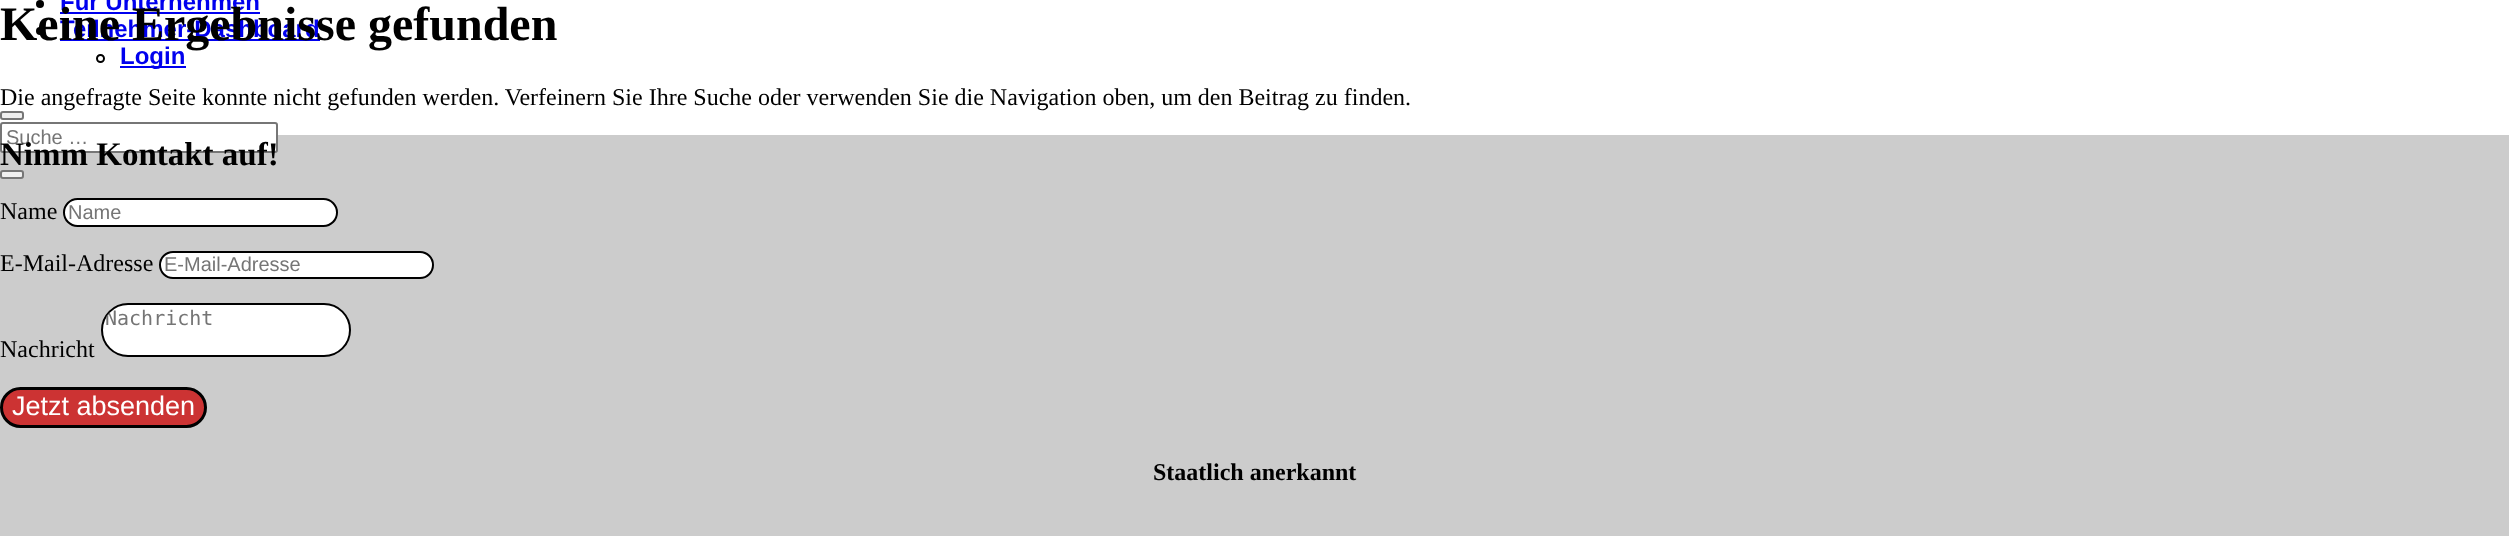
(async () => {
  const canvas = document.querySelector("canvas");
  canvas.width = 2509;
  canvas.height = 536;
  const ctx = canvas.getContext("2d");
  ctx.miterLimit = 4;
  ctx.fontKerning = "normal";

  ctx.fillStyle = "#ffffff";
  ctx.fillRect(0, 0, 2509, 536);
  ctx.fillStyle = "#000000";
  ctx.beginPath();
  ctx.arc(40, 4, 4, 0, Math.PI * 2);
  ctx.fill();
  ctx.fillStyle = "#0000ee";
  ctx.fillRect(60, 12, 200, 2);
  ctx.fillStyle = "#000000";
  ctx.beginPath();
  ctx.arc(40, 31, 4, 0, Math.PI * 2);
  ctx.fill();
  ctx.fillStyle = "#0000ee";
  ctx.fillRect(60, 39, 260, 2);
  ctx.beginPath();
  ctx.arc(100.5, 58.5, 3.5, 0, Math.PI * 2);
  ctx.strokeStyle = "#000000";
  ctx.lineWidth = 2;
  ctx.stroke();
  ctx.fillRect(120, 66, 66, 2);
  ctx.fillStyle = "#efefef";
  ctx.beginPath();
  ctx.roundRect(1, 112, 22, 7, 2);
  ctx.fill();
  ctx.strokeStyle = "#767676";
  ctx.stroke();
  ctx.fillStyle = "#cccccc";
  ctx.fillRect(0, 135, 2509, 401);
  ctx.fillStyle = "#ffffff";
  ctx.beginPath();
  ctx.roundRect(1, 123, 276, 29, 2);
  ctx.fill();
  ctx.stroke();
  ctx.fillStyle = "#efefef";
  ctx.beginPath();
  ctx.roundRect(1, 171, 22, 7, 2);
  ctx.fill();
  ctx.stroke();
  ctx.fillStyle = "#ffffff";
  ctx.beginPath();
  ctx.roundRect(64, 199, 273, 27, 13.5);
  ctx.fill();
  ctx.strokeStyle = "#000000";
  ctx.stroke();
  ctx.beginPath();
  ctx.roundRect(160, 252, 273, 26, 13);
  ctx.fill();
  ctx.stroke();
  ctx.beginPath();
  ctx.roundRect(102, 304, 248, 52, 26);
  ctx.fill();
  ctx.stroke();
  ctx.fillStyle = "#cc3333";
  ctx.beginPath();
  ctx.roundRect(1.5, 388.5, 204, 38, 19);
  ctx.fill();
  ctx.lineWidth = 3;
  ctx.stroke();
  ctx.font = "bold 24px Liberation Sans";
  ctx.fillStyle = "#0000ee";
  for (const [text, x, y] of [
    ["Für Unternehmen", 60, 10],
    ["Teilnehmer-Dashboard", 60, 37],
    ["Login", 120, 64],
  ]) {
    ctx.fillText(text, x, y);
  }
  ctx.font = "20px Liberation Sans";
  ctx.fillStyle = "#757575";
  ctx.fillText("Suche …", 6, 144);
  ctx.font = "bold 48px Liberation Serif";
  ctx.fillStyle = "#000000";
  ctx.fillText("Keine Ergebnisse gefunden", 0, 40);
  ctx.font = "24px Liberation Serif";
  ctx.fillText("Die angefragte Seite konnte nicht gefunden werden. Verfeinern Sie Ihre Suche oder verwenden Sie die Navigation oben, um den Beitrag zu finden.", 0, 105);
  ctx.font = "bold 33px Liberation Serif";
  ctx.fillText("Nimm Kontakt auf!", 0, 165);
  ctx.font = "24px Liberation Serif";
  ctx.fillText("Name", 0, 219);
  ctx.font = "20px Liberation Sans";
  ctx.fillStyle = "#757575";
  ctx.fillText("Name", 68, 219);
  ctx.font = "24px Liberation Serif";
  ctx.fillStyle = "#000000";
  ctx.fillText("E-Mail-Adresse", 0, 271);
  ctx.font = "20px Liberation Sans";
  ctx.fillStyle = "#757575";
  ctx.fillText("E-Mail-Adresse", 164, 271);
  ctx.save();
  ctx.beginPath();
  ctx.roundRect(102, 305, 248, 51, 25.5);
  ctx.clip();
  ctx.font = "20px DejaVu Sans Mono";
  ctx.fillText("Nachricht", 105, 325);
  ctx.restore();
  ctx.font = "24px Liberation Serif";
  ctx.fillStyle = "#000000";
  ctx.fillText("Nachricht", 0, 357);
  ctx.font = "27px Liberation Sans";
  ctx.fillStyle = "#ffffff";
  ctx.fillText("Jetzt absenden", 12, 415);
  ctx.font = "bold 24px Liberation Serif";
  ctx.fillStyle = "#000000";
  ctx.fillText("Staatlich anerkannt", 1153, 480);
})();
